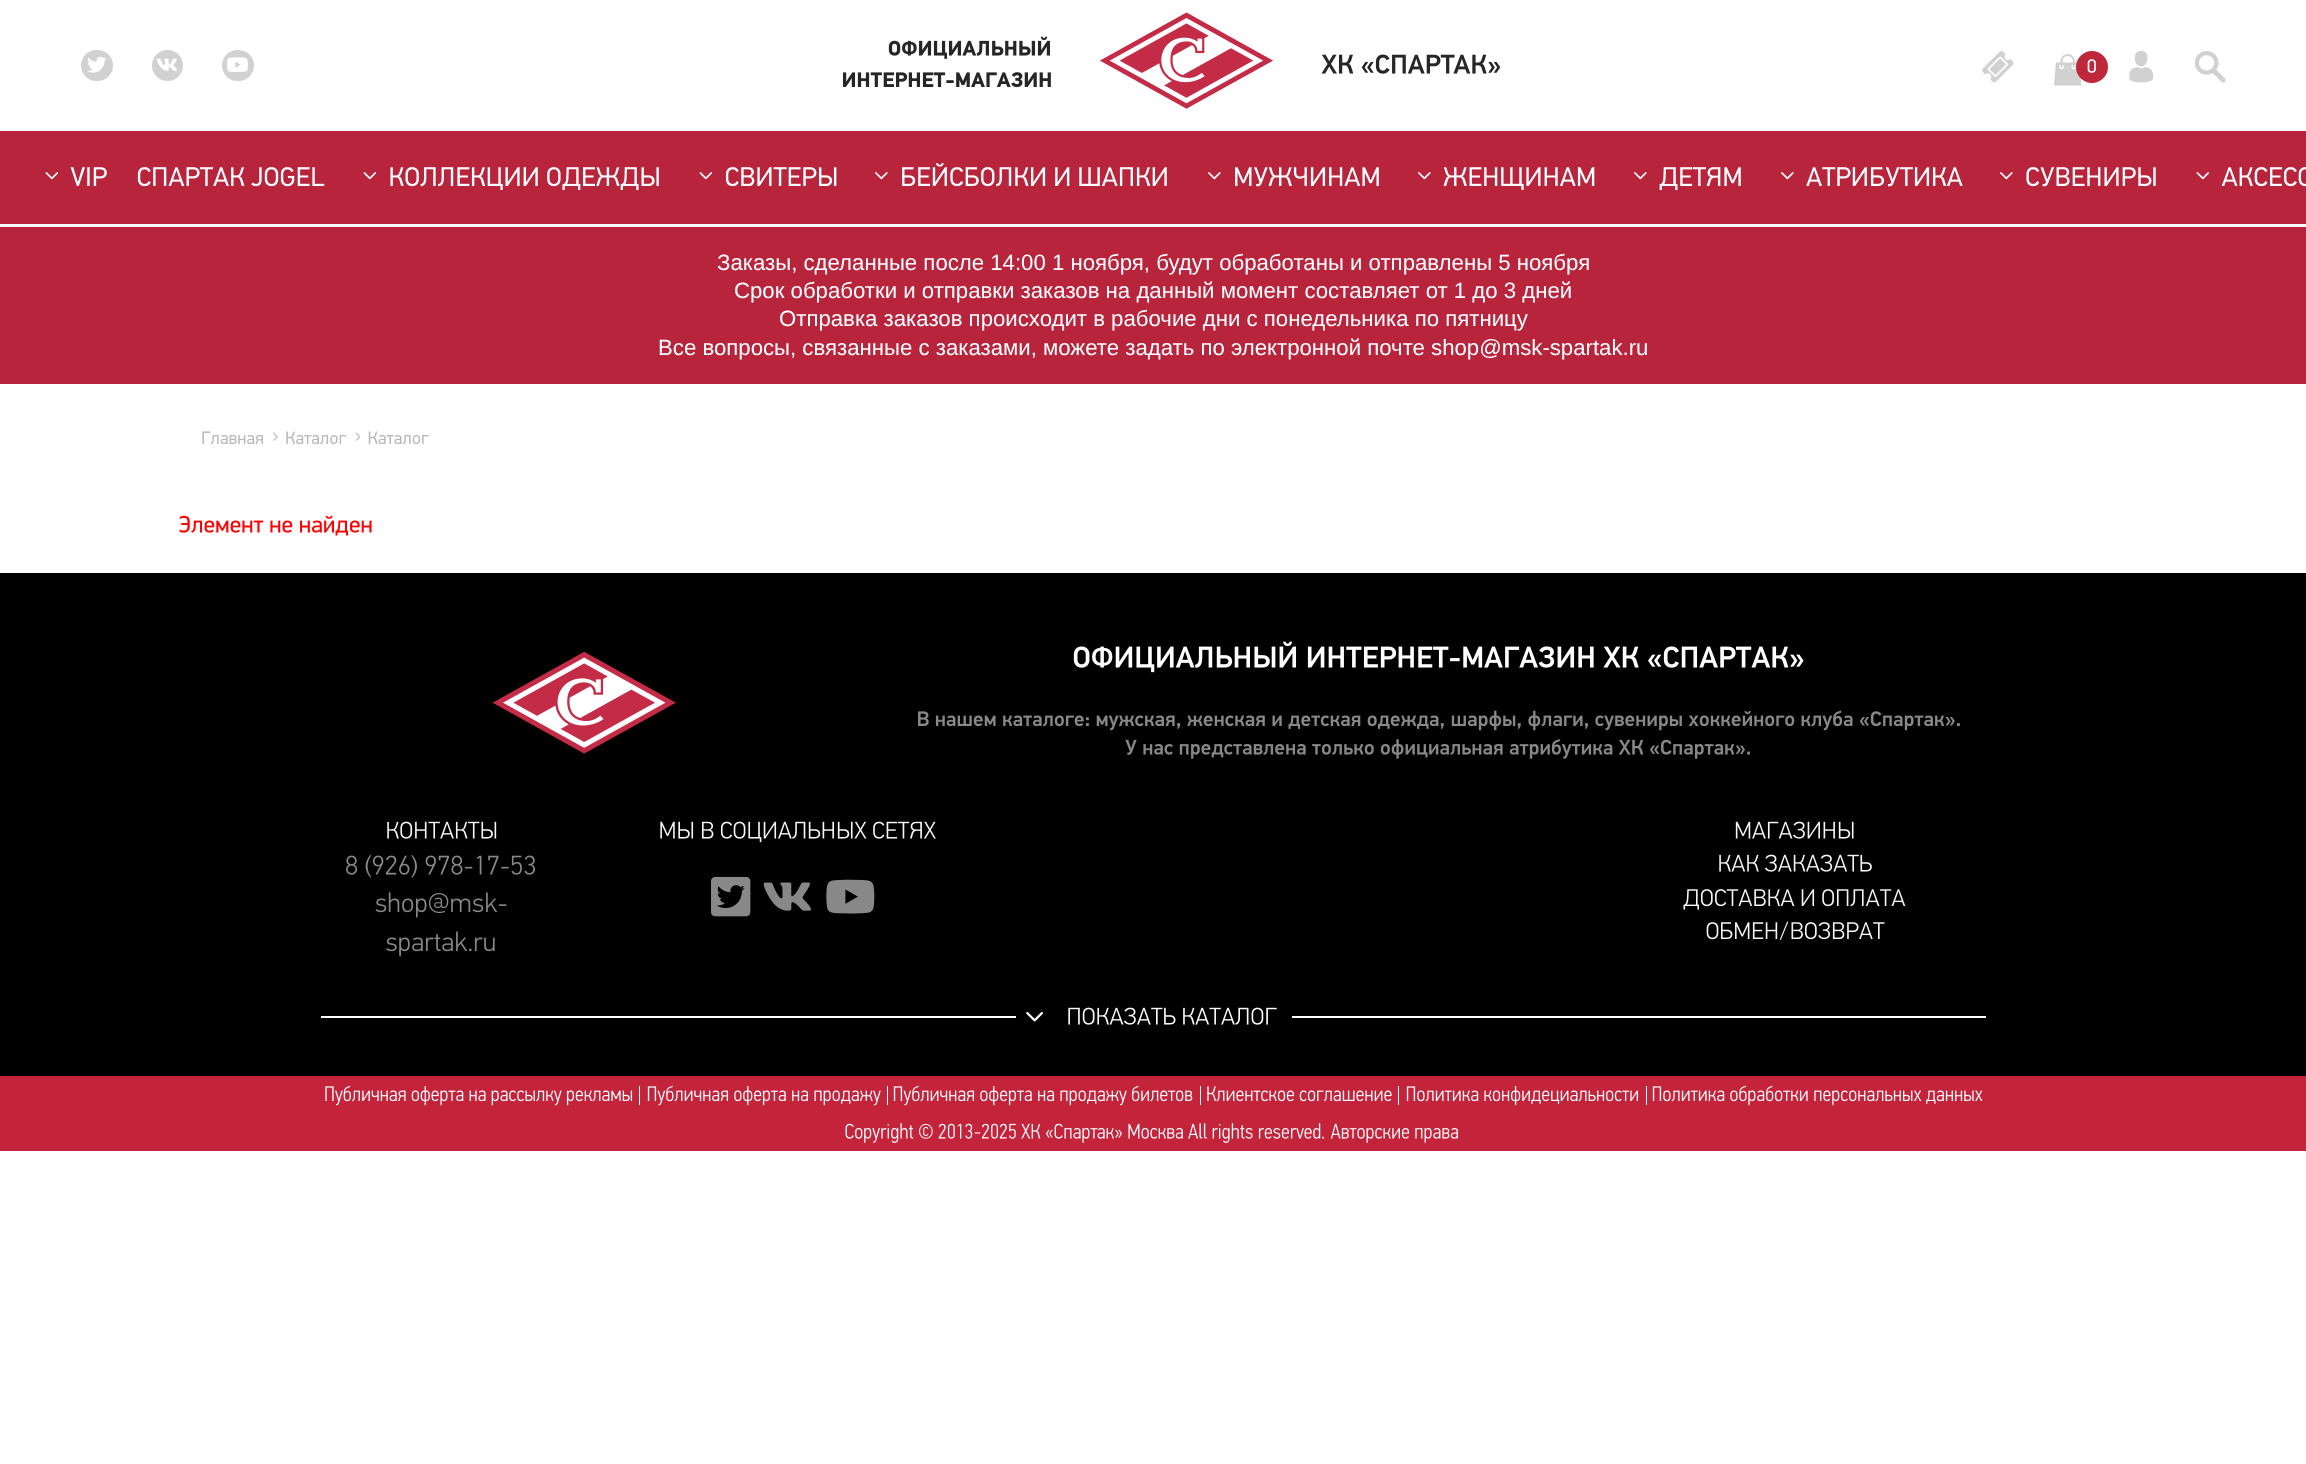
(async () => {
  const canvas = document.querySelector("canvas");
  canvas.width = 2306;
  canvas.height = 1464;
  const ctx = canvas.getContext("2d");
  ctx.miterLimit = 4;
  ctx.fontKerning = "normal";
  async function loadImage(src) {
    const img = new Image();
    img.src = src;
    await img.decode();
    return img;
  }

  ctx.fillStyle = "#ffffff";
  ctx.fillRect(0, 0, 2306, 1464);
  ctx.fillStyle = "#d1d1d1";
  ctx.beginPath();
  ctx.roundRect(81, 50, 32, 31, 15.5);
  ctx.fill();
  ctx.drawImage(await loadImage("img/1.png"), 87, 56, 19, 17);
  ctx.beginPath();
  ctx.arc(167.5, 65.5, 15.5, 0, Math.PI * 2);
  ctx.fill();
  ctx.drawImage(await loadImage("img/2.png"), 156, 58, 22, 13);
  ctx.beginPath();
  ctx.roundRect(222, 50, 32, 31, 15.5);
  ctx.fill();
  ctx.drawImage(await loadImage("img/3.png"), 227, 57, 21, 15);
  ctx.drawImage(await loadImage("img/4.png"), 888, 36, 162, 23);
  ctx.drawImage(await loadImage("img/5.png"), 843, 72, 208, 16);
  ctx.drawImage(await loadImage("img/6.png"), 1100, 12, 173, 97);
  ctx.drawImage(await loadImage("img/7.png"), 1321, 54, 180, 20);
  ctx.drawImage(await loadImage("img/8.png"), 1982, 51, 32, 32);
  ctx.drawImage(await loadImage("img/9.png"), 2054, 54, 28, 32);
  ctx.fillStyle = "#bf273a";
  ctx.beginPath();
  ctx.arc(2092, 67, 16, 0, Math.PI * 2);
  ctx.fill();
  ctx.drawImage(await loadImage("img/10.png"), 2087, 59, 9, 14);
  ctx.drawImage(await loadImage("img/11.png"), 2129, 51, 25, 32);
  ctx.drawImage(await loadImage("img/12.png"), 2195, 51, 31, 32);
  ctx.fillStyle = "#b7243b";
  ctx.fillRect(0, 131, 2306, 93);
  ctx.drawImage(await loadImage("img/13.png"), 45, 172, 14, 8);
  ctx.drawImage(await loadImage("img/14.png"), 70, 167, 37, 19);
  ctx.drawImage(await loadImage("img/15.png"), 137, 167, 188, 20);
  ctx.drawImage(await loadImage("img/13.png"), 363, 172, 14, 8);
  ctx.drawImage(await loadImage("img/16.png"), 390, 167, 269, 23);
  ctx.drawImage(await loadImage("img/13.png"), 699, 172, 14, 8);
  ctx.drawImage(await loadImage("img/17.png"), 725, 167, 112, 20);
  ctx.drawImage(await loadImage("img/18.png"), 875, 172, 13, 8);
  ctx.drawImage(await loadImage("img/19.png"), 902, 163, 265, 24);
  ctx.drawImage(await loadImage("img/18.png"), 1208, 172, 13, 8);
  ctx.drawImage(await loadImage("img/20.png"), 1235, 167, 144, 20);
  ctx.drawImage(await loadImage("img/18.png"), 1418, 172, 13, 8);
  ctx.drawImage(await loadImage("img/21.png"), 1443, 167, 152, 23);
  ctx.drawImage(await loadImage("img/18.png"), 1634, 172, 13, 8);
  ctx.drawImage(await loadImage("img/22.png"), 1659, 167, 82, 23);
  ctx.drawImage(await loadImage("img/18.png"), 1781, 172, 13, 8);
  ctx.drawImage(await loadImage("img/23.png"), 1806, 167, 157, 20);
  ctx.drawImage(await loadImage("img/18.png"), 2000, 172, 13, 8);
  ctx.drawImage(await loadImage("img/24.png"), 2026, 167, 130, 20);
  ctx.drawImage(await loadImage("img/13.png"), 2196, 172, 14, 8);
  ctx.drawImage(await loadImage("img/25.png"), 2221, 167, 85, 20);
  ctx.fillRect(0, 227, 2306, 157);
  ctx.drawImage(await loadImage("img/26.png"), 202, 431, 61, 14);
  ctx.drawImage(await loadImage("img/27.png"), 273, 432, 5, 9);
  ctx.drawImage(await loadImage("img/28.png"), 286, 431, 61, 14);
  ctx.drawImage(await loadImage("img/29.png"), 355, 432, 6, 9);
  ctx.drawImage(await loadImage("img/30.png"), 368, 431, 61, 14);
  ctx.drawImage(await loadImage("img/31.png"), 179, 515, 193, 21);
  ctx.fillStyle = "#000000";
  ctx.fillRect(0, 573, 2306, 503);
  ctx.drawImage(await loadImage("img/32.png"), 492, 651, 184, 103);
  ctx.drawImage(await loadImage("img/33.png"), 1073, 641, 731, 32);
  ctx.drawImage(await loadImage("img/34.png"), 918, 710, 1042, 21);
  ctx.drawImage(await loadImage("img/35.png"), 1125, 739, 625, 20);
  ctx.drawImage(await loadImage("img/36.png"), 387, 821, 110, 18);
  ctx.drawImage(await loadImage("img/37.png"), 346, 855, 189, 23);
  ctx.drawImage(await loadImage("img/38.png"), 375, 892, 132, 26);
  ctx.drawImage(await loadImage("img/39.png"), 386, 931, 109, 26);
  ctx.drawImage(await loadImage("img/40.png"), 660, 821, 276, 22);
  ctx.drawImage(await loadImage("img/41.png"), 711, 876, 40, 41);
  ctx.drawImage(await loadImage("img/42.png"), 763, 882, 48, 29);
  ctx.drawImage(await loadImage("img/43.png"), 826, 879, 49, 35);
  ctx.drawImage(await loadImage("img/44.png"), 1735, 821, 119, 18);
  ctx.drawImage(await loadImage("img/45.png"), 1719, 854, 153, 18);
  ctx.drawImage(await loadImage("img/46.png"), 1683, 889, 223, 21);
  ctx.drawImage(await loadImage("img/47.png"), 1706, 921, 179, 19);
  ctx.fillStyle = "#ffffff";
  ctx.fillRect(321, 1016, 695, 2);
  ctx.drawImage(await loadImage("img/48.png"), 1026, 1012, 17, 10);
  ctx.drawImage(await loadImage("img/49.png"), 1068, 1007, 209, 18);
  ctx.fillRect(1292, 1016, 694, 2);
  ctx.fillStyle = "#c3243c";
  ctx.fillRect(0, 1076, 2306, 75);
  ctx.drawImage(await loadImage("img/50.png"), 325, 1085, 308, 21);
  ctx.fillStyle = "#ffffff";
  ctx.fillRect(639, 1086, 1, 19);
  ctx.drawImage(await loadImage("img/51.png"), 647, 1085, 234, 21);
  ctx.fillRect(887, 1086, 1, 19);
  ctx.drawImage(await loadImage("img/52.png"), 893, 1085, 300, 21);
  ctx.fillRect(1200, 1086, 1, 19);
  ctx.drawImage(await loadImage("img/53.png"), 1207, 1086, 185, 16);
  ctx.fillRect(1398, 1086, 1, 19);
  ctx.drawImage(await loadImage("img/54.png"), 1406, 1086, 232, 20);
  ctx.fillRect(1646, 1086, 1, 19);
  ctx.drawImage(await loadImage("img/55.png"), 1652, 1085, 331, 21);
  ctx.drawImage(await loadImage("img/56.png"), 845, 1123, 338, 20);
  ctx.drawImage(await loadImage("img/57.png"), 1188, 1123, 136, 20);
  ctx.drawImage(await loadImage("img/58.png"), 1330, 1123, 128, 20);
  ctx.font = "22.2px Liberation Sans";
  for (const [text, x, y] of [
    ["Заказы, сделанные после 14:00 1 ноября, будут обработаны и отправлены 5 ноября", 717, 270],
    ["Срок обработки и отправки заказов на данный момент составляет от 1 до 3 дней", 734, 298],
    ["Отправка заказов происходит в рабочие дни с понедельника по пятницу", 779, 326],
    ["Все вопросы, связанные с заказами, можете задать по электронной почте shop@msk-spartak.ru", 658, 355],
  ]) {
    ctx.fillText(text, x, y);
  }
})();
